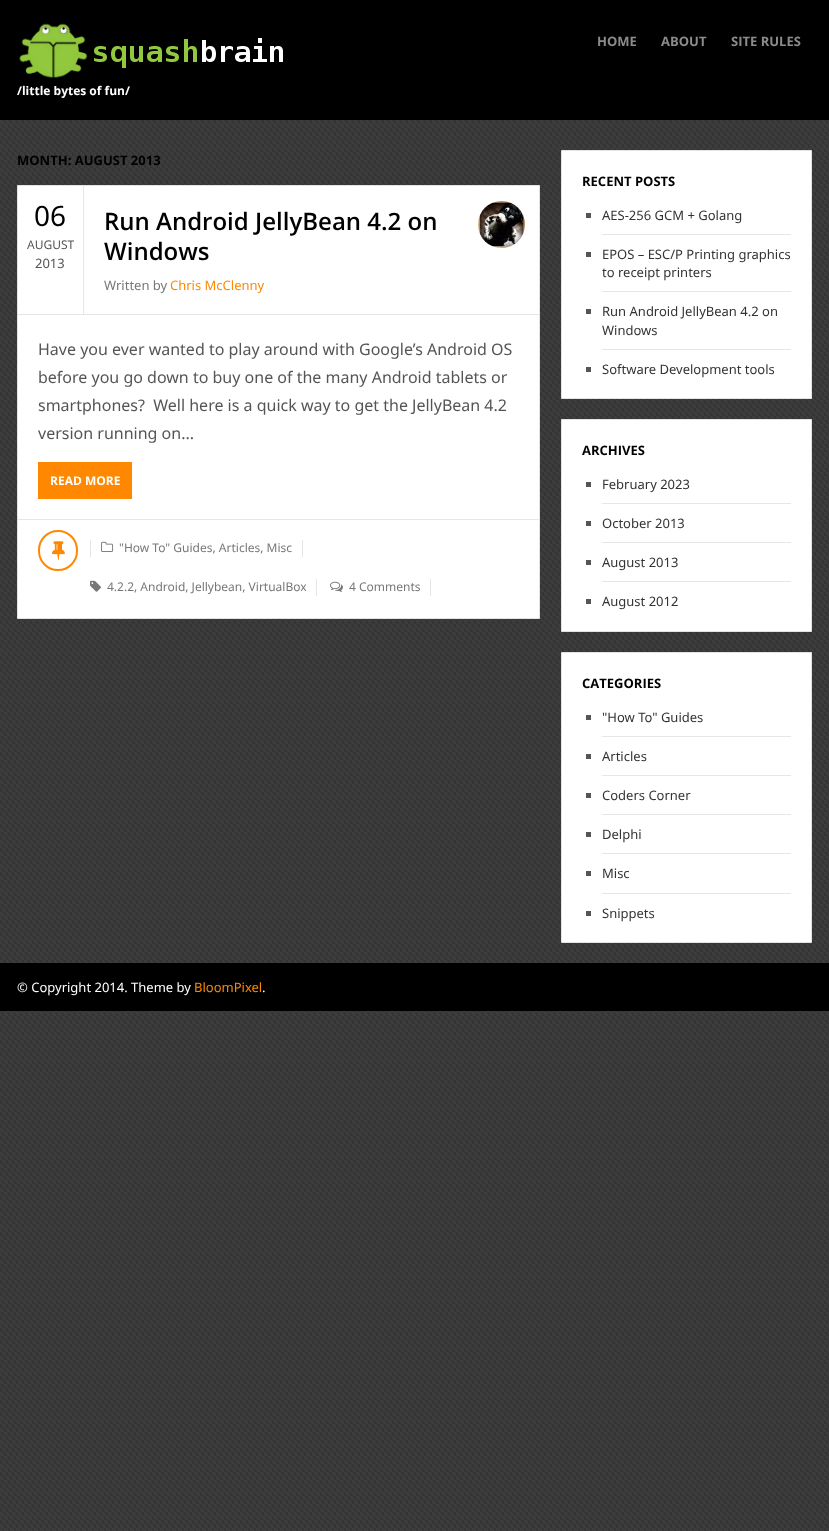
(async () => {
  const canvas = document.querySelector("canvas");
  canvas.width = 829;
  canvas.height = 1531;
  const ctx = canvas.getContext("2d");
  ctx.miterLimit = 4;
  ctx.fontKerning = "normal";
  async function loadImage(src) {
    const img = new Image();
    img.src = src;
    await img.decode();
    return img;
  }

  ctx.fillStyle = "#ffffff";
  ctx.fillRect(0, 0, 829, 1531);
  ctx.drawImage(await loadImage("img/1.png"), 0, 1011, 829, 520);
  ctx.drawImage(await loadImage("img/2.png"), 0, 120, 829, 843);
  ctx.fillStyle = "#000000";
  ctx.fillRect(0, 0, 829, 120);
  ctx.drawImage(await loadImage("img/3.png"), 19, 23, 264, 55);
  ctx.fillStyle = "#ffffff";
  ctx.beginPath();
  ctx.rect(17.5, 185.5, 522, 433);
  ctx.fill();
  ctx.strokeStyle = "#e3e3e3";
  ctx.stroke();
  ctx.fillStyle = "#e6e6e6";
  ctx.fillRect(18, 314, 521, 1);
  ctx.fillRect(83, 186, 1, 128);
  ctx.drawImage(await loadImage("img/4.png"), 478, 201, 47, 47);
  ctx.fillStyle = "#ff8800";
  ctx.fillRect(38, 462, 94, 37);
  ctx.fillStyle = "#e6e6e6";
  ctx.fillRect(18, 519, 521, 1);
  ctx.beginPath();
  ctx.roundRect(39, 531, 38, 39, 19);
  ctx.strokeStyle = "#ff8800";
  ctx.lineWidth = 2;
  ctx.stroke();
  ctx.drawImage(await loadImage("img/5.png"), 52, 541, 13, 19);
  ctx.fillRect(302, 540, 1, 17);
  ctx.fillRect(90, 540, 1, 17);
  ctx.drawImage(await loadImage("img/6.png"), 101, 541, 13, 11);
  ctx.fillRect(316, 579, 1, 17);
  ctx.drawImage(await loadImage("img/7.png"), 90, 580, 11, 12);
  ctx.fillRect(430, 579, 1, 17);
  ctx.drawImage(await loadImage("img/8.png"), 330, 581, 13, 11);
  ctx.fillStyle = "#ffffff";
  ctx.beginPath();
  ctx.rect(561.5, 150.5, 250, 248);
  ctx.fill();
  ctx.strokeStyle = "#e3e3e3";
  ctx.lineWidth = 1;
  ctx.stroke();
  for (const [x, y, w, h, color] of [
    [602, 234, 189, 1, "#e6e6e6"],
    [586, 213, 5, 5, "#555555"],
    [602, 291, 189, 1, "#e6e6e6"],
    [586, 252, 5, 5, "#555555"],
    [602, 349, 189, 1, "#e6e6e6"],
    [586, 309, 5, 5, "#555555"],
    [586, 367, 5, 5, "#555555"],
  ]) {
    ctx.fillStyle = color;
    ctx.fillRect(x, y, w, h);
  }
  ctx.fillStyle = "#ffffff";
  ctx.beginPath();
  ctx.rect(561.5, 419.5, 250, 212);
  ctx.fill();
  ctx.stroke();
  for (const [x, y, w, h, color] of [
    [602, 503, 189, 1, "#e6e6e6"],
    [586, 482, 5, 5, "#555555"],
    [602, 542, 189, 1, "#e6e6e6"],
    [586, 521, 5, 5, "#555555"],
    [602, 581, 189, 1, "#e6e6e6"],
    [586, 560, 5, 5, "#555555"],
    [586, 599, 5, 5, "#555555"],
  ]) {
    ctx.fillStyle = color;
    ctx.fillRect(x, y, w, h);
  }
  ctx.fillStyle = "#ffffff";
  ctx.beginPath();
  ctx.rect(561.5, 652.5, 250, 290);
  ctx.fill();
  ctx.stroke();
  for (const [x, y, w, h, color] of [
    [602, 736, 189, 1, "#e6e6e6"],
    [586, 715, 5, 5, "#555555"],
    [602, 775, 189, 1, "#e6e6e6"],
    [586, 754, 5, 5, "#555555"],
    [602, 814, 189, 1, "#e6e6e6"],
    [586, 793, 5, 5, "#555555"],
    [602, 853, 189, 1, "#e6e6e6"],
    [586, 832, 5, 5, "#555555"],
    [602, 893, 189, 1, "#e6e6e6"],
    [586, 871, 5, 5, "#555555"],
    [586, 911, 5, 5, "#555555"],
    [0, 963, 829, 48, "#000000"],
  ]) {
    ctx.fillStyle = color;
    ctx.fillRect(x, y, w, h);
  }
  ctx.font = "bold 13px Open Sans";
  ctx.fillStyle = "#8b8b8b";
  for (const [text, x, y] of [
    ["HOME", 597, 46],
    ["ABOUT", 661, 46],
    ["SITE RULES", 731, 46],
  ]) {
    ctx.fillText(text, x, y);
  }
  ctx.font = "bold 12px Open Sans";
  ctx.fillStyle = "#ffffff";
  ctx.fillText("/little bytes of fun/", 17, 95);
  ctx.font = "bold 13px Open Sans";
  ctx.fillStyle = "#000000";
  ctx.fillText("MONTH: AUGUST 2013", 17, 165);
  ctx.font = "28px Noto Sans";
  ctx.fillText("06", 34, 226);
  ctx.font = "12px Noto Sans";
  ctx.fillStyle = "#555555";
  ctx.fillText("AUGUST", 27, 249);
  ctx.font = "13px Noto Sans";
  ctx.fillText("2013", 35, 268);
  ctx.font = "600 24px Open Sans";
  ctx.fillStyle = "#000000";
  ctx.fillText("Run Android JellyBean 4.2 on", 104, 230);
  ctx.fillText("Windows", 104, 260);
  ctx.font = "13px Noto Sans";
  ctx.fillStyle = "#777777";
  ctx.fillText("Written by", 104, 290);
  ctx.fillStyle = "#ff8800";
  ctx.fillText("Chris McClenny", 170, 290);
  ctx.font = "16px Noto Sans";
  ctx.fillStyle = "#555555";
  for (const [text, x, y] of [
    ["Have you ever wanted to play around with Google’s Android OS", 38, 355],
    ["before you go down to buy one of the many Android tablets or", 38, 383],
    ["smartphones?  Well here is a quick way to get the JellyBean 4.2", 38, 411],
    ["version running on...", 38, 439],
  ]) {
    ctx.fillText(text, x, y);
  }
  ctx.font = "bold 12px Open Sans";
  ctx.fillStyle = "#ffffff";
  ctx.fillText("READ MORE", 50, 485);
  ctx.font = "12px Noto Sans";
  ctx.fillStyle = "#777777";
  for (const [text, x, y] of [
    ["\"How To\" Guides, Articles, Misc", 119, 552],
    ["4.2.2, Android, Jellybean, VirtualBox", 107, 591],
    ["4 Comments", 349, 591],
  ]) {
    ctx.fillText(text, x, y);
  }
  ctx.font = "bold 13px Open Sans";
  ctx.fillStyle = "#000000";
  ctx.fillText("RECENT POSTS", 582, 186);
  ctx.font = "13px Noto Sans";
  ctx.fillStyle = "#333333";
  for (const [text, x, y] of [
    ["AES-256 GCM + Golang", 602, 220],
    ["EPOS – ESC/P Printing graphics", 602, 259],
    ["to receipt printers", 602, 277],
    ["Run Android JellyBean 4.2 on", 602, 316],
    ["Windows", 602, 335],
    ["Software Development tools", 602, 374],
  ]) {
    ctx.fillText(text, x, y);
  }
  ctx.font = "bold 13px Open Sans";
  ctx.fillStyle = "#000000";
  ctx.fillText("ARCHIVES", 582, 455);
  ctx.font = "13px Noto Sans";
  ctx.fillStyle = "#333333";
  for (const [text, x, y] of [
    ["February 2023", 602, 489],
    ["October 2013", 602, 528],
    ["August 2013", 602, 567],
    ["August 2012", 602, 606],
  ]) {
    ctx.fillText(text, x, y);
  }
  ctx.font = "bold 13px Open Sans";
  ctx.fillStyle = "#000000";
  ctx.fillText("CATEGORIES", 582, 688);
  ctx.font = "13px Noto Sans";
  ctx.fillStyle = "#333333";
  for (const [text, x, y] of [
    ["\"How To\" Guides", 602, 722],
    ["Articles", 602, 761],
    ["Coders Corner", 602, 800],
    ["Delphi", 602, 839],
    ["Misc", 602, 878],
    ["Snippets", 602, 918],
  ]) {
    ctx.fillText(text, x, y);
  }
  ctx.fillStyle = "#ffffff";
  ctx.fillText("© Copyright 2014. Theme by", 17, 992);
  ctx.fillStyle = "#ff8800";
  ctx.fillText("BloomPixel", 194, 992);
  ctx.fillStyle = "#ffffff";
  ctx.fillText(".", 262, 992);
})();
